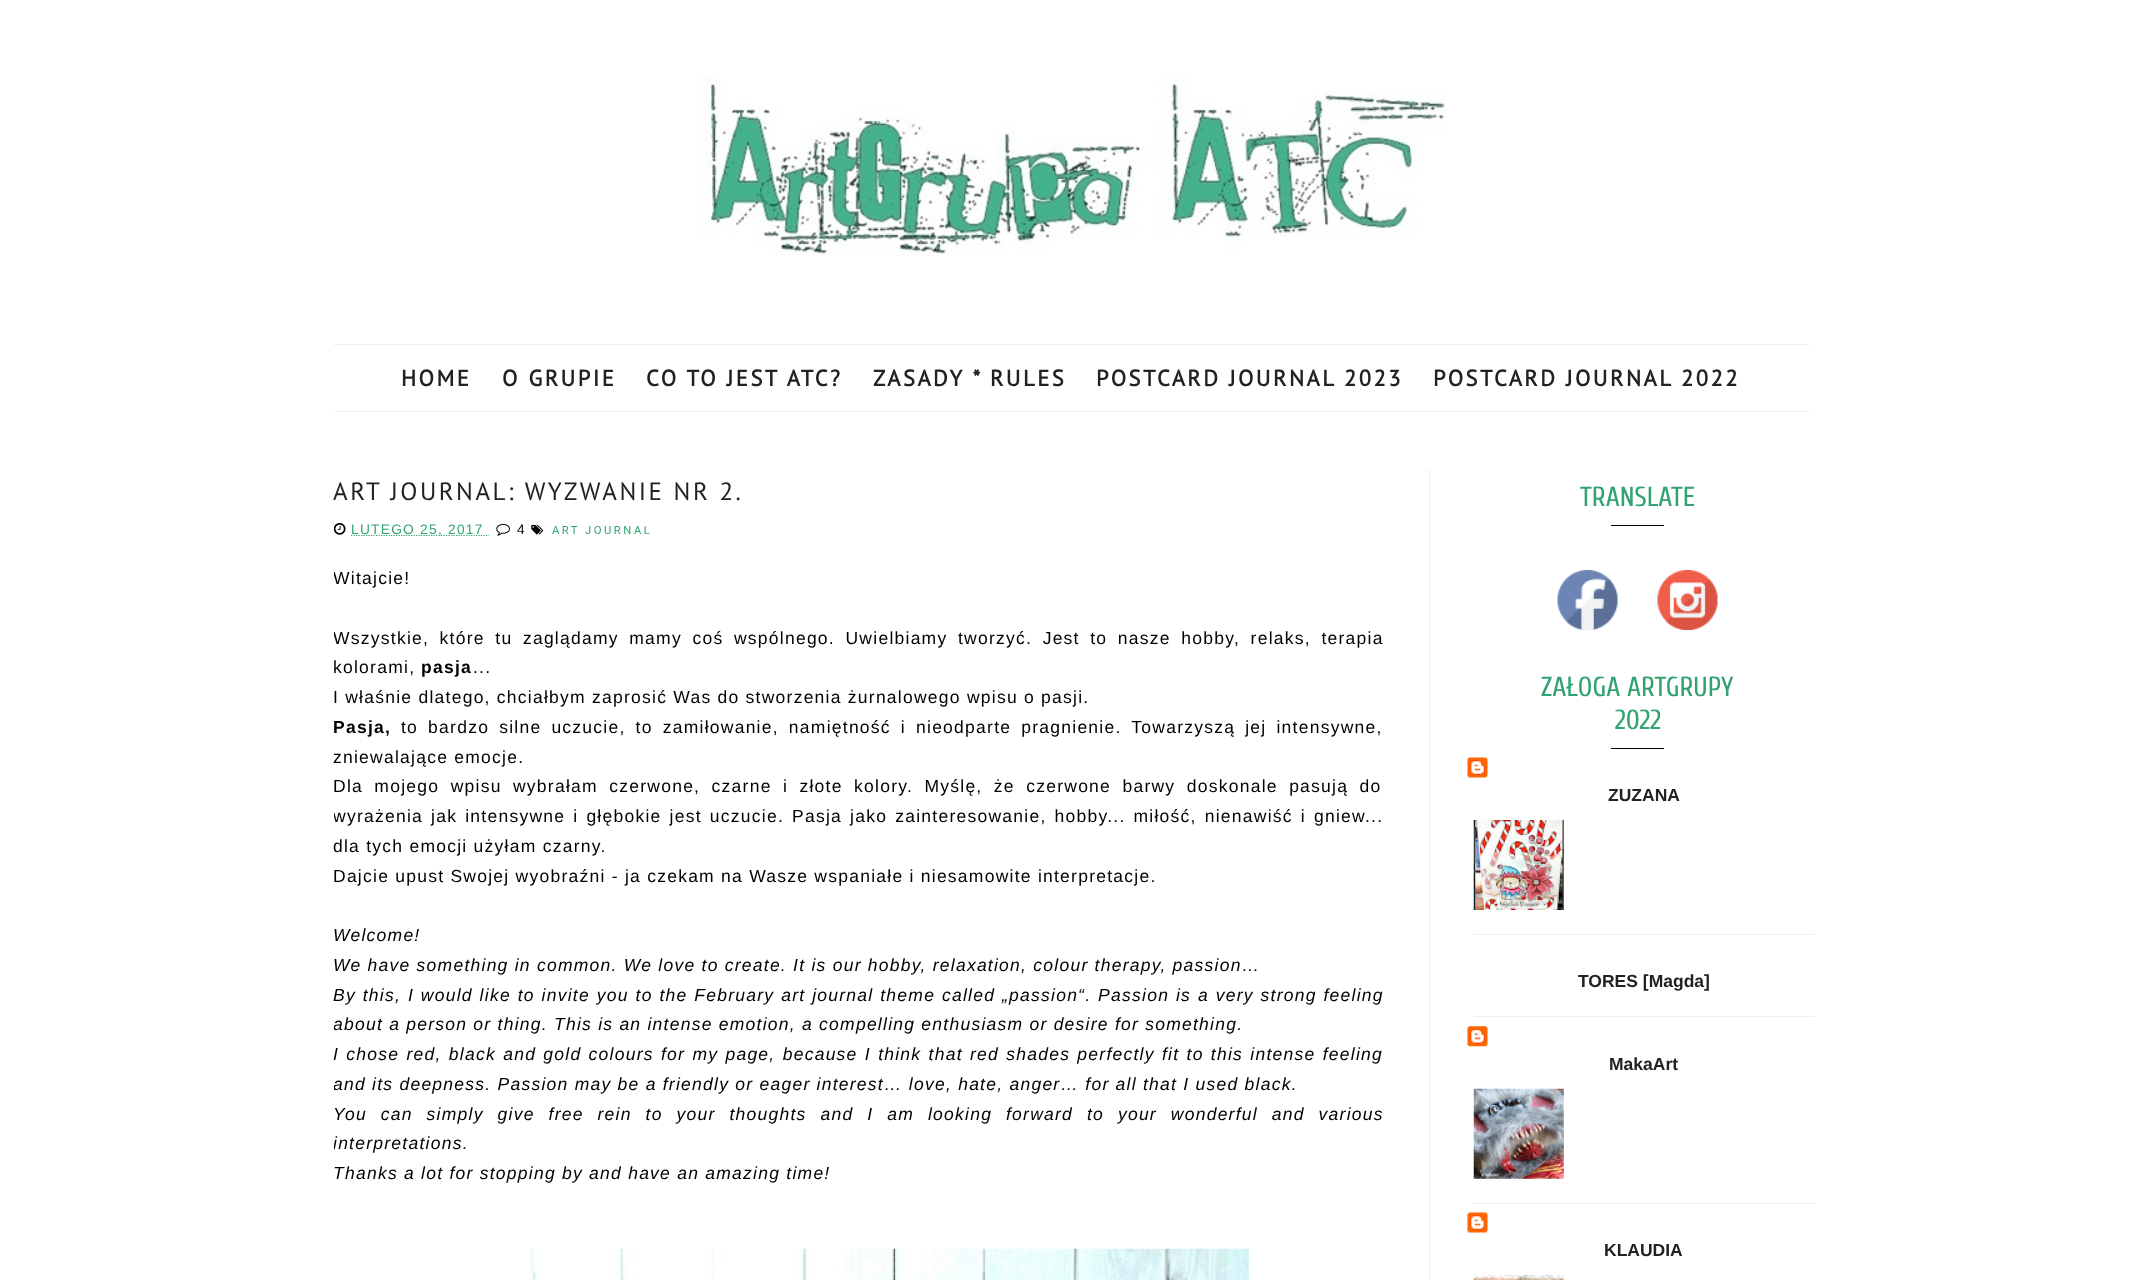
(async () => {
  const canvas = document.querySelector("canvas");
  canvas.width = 2141;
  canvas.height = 1280;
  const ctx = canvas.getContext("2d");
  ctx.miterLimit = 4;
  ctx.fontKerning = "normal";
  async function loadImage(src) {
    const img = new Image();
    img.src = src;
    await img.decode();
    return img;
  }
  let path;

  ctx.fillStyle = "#ffffff";
  ctx.fillRect(0, 0, 2141, 1280);
  ctx.drawImage(await loadImage("img/1.png"), 696, 76, 750, 180);
  ctx.fillStyle = "#eeeeee";
  ctx.fillRect(334, 344, 1475, 1);
  ctx.fillRect(334, 411, 1475, 1);
  ctx.drawImage(await loadImage("img/2.png"), 334, 522, 12, 13);
  path = new Path2D("M351 535.5H489");
  ctx.strokeStyle = "#32a370";
  ctx.lineWidth = 1.2;
  ctx.setLineDash([1.25, 1.25]);
  ctx.stroke(path);
  ctx.drawImage(await loadImage("img/3.png"), 496, 523, 14, 13);
  ctx.drawImage(await loadImage("img/4.png"), 531, 524, 13, 11);
  ctx.drawImage(await loadImage("img/5.png"), 530, 1248, 719, 32);
  ctx.fillRect(1429, 469, 1, 811);
  ctx.fillStyle = "#000000";
  ctx.fillRect(1611, 525, 53, 1);
  ctx.drawImage(await loadImage("img/6.png"), 1557, 570, 61, 60);
  ctx.drawImage(await loadImage("img/7.png"), 1657, 570, 61, 60);
  ctx.fillRect(1611, 748, 53, 1);
  ctx.drawImage(await loadImage("img/8.png"), 1467, 757, 21, 21);
  ctx.fillStyle = "#eeeeee";
  ctx.fillRect(1474, 934, 341, 1);
  ctx.drawImage(await loadImage("img/9.png"), 1473, 820, 91, 90);
  ctx.fillRect(1474, 1016, 341, 1);
  ctx.drawImage(await loadImage("img/10.png"), 1467, 1026, 21, 21);
  ctx.fillRect(1474, 1203, 341, 1);
  ctx.drawImage(await loadImage("img/11.png"), 1473, 1088, 91, 91);
  ctx.drawImage(await loadImage("img/8.png"), 1467, 1212, 21, 21);
  ctx.drawImage(await loadImage("img/12.png"), 1473, 1275, 91, 5);
  ctx.letterSpacing = "2.5px";
  ctx.font = "bold 22.5px PT Sans";
  ctx.fillStyle = "#222222";
  for (const [text, x, y] of [
    ["HOME", 401, 386],
    ["O GRUPIE", 502, 386],
    ["CO TO JEST ATC?", 646, 386],
    ["ZASADY * RULES", 873, 386],
    ["POSTCARD JOURNAL 2023", 1096, 386],
    ["POSTCARD JOURNAL 2022", 1433, 386],
  ]) {
    ctx.fillText(text, x, y);
  }
  ctx.font = "25px PT Sans";
  ctx.fillText("ART JOURNAL: WYZWANIE NR 2.", 333, 500);
  ctx.letterSpacing = "1.25px";
  ctx.font = "13.75px Liberation Sans";
  ctx.fillStyle = "#32a370";
  ctx.fillText("LUTEGO 25, 2017", 351, 534);
  ctx.fillStyle = "#000000";
  ctx.fillText("4", 517, 534);
  ctx.letterSpacing = "2.5px";
  ctx.font = "11.25px Roboto";
  ctx.fillStyle = "#32a370";
  ctx.fillText("ART JOURNAL", 552, 534);
  ctx.save();
  ctx.beginPath();
  ctx.rect(334, 475, 1050, 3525);
  ctx.clip();
  ctx.letterSpacing = "1.25px";
  ctx.font = "17.5px Liberation Sans";
  ctx.fillStyle = "#000000";
  ctx.fillText("Witajcie!", 333, 584);
  ctx.wordSpacing = "4.4px";
  ctx.fillText("Wszystkie, które tu zaglądamy mamy coś wspólnego. Uwielbiamy tworzyć. Jest to nasze hobby, relaks, terapia", 333, 644);
  ctx.restore();
  ctx.letterSpacing = "1.25px";
  ctx.font = "17.5px Liberation Sans";
  ctx.fillStyle = "#000000";
  ctx.fillText("kolorami,", 333, 673);
  ctx.font = "bold 17.5px Liberation Sans";
  ctx.fillText("pasja", 421, 673);
  ctx.font = "17.5px Liberation Sans";
  ctx.fillText("...", 473, 673);
  ctx.fillText("I właśnie dlatego, chciałbym zaprosić Was do stworzenia żurnalowego wpisu o pasji.", 333, 703);
  ctx.font = "bold 17.5px Liberation Sans";
  ctx.fillText("Pasja,", 333, 733);
  ctx.wordSpacing = "3.9px";
  ctx.font = "17.5px Liberation Sans";
  ctx.fillText("to bardzo silne uczucie, to zamiłowanie, namiętność i nieodparte pragnienie. Towarzyszą jej intensywne,", 401, 733);
  ctx.wordSpacing = "0px";
  ctx.fillText("zniewalające emocje.", 333, 763);
  ctx.wordSpacing = "5.25px";
  ctx.fillText("Dla mojego wpisu wybrałam czerwone, czarne i złote kolory. Myślę, że czerwone barwy doskonale pasują do", 333, 792);
  ctx.save();
  ctx.beginPath();
  ctx.rect(334, 475, 1050, 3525);
  ctx.clip();
  ctx.wordSpacing = "1.9px";
  ctx.fillText("wyrażenia jak intensywne i głębokie jest uczucie. Pasja jako zainteresowanie, hobby... miłość, nienawiść i gniew...", 333, 822);
  ctx.restore();
  ctx.wordSpacing = "0px";
  ctx.fillText("dla tych emocji użyłam czarny.", 333, 852);
  ctx.fillText("Dajcie upust Swojej wyobraźni - ja czekam na Wasze wspaniałe i niesamowite interpretacje.", 333, 882);
  ctx.font = "italic 17.5px Liberation Sans";
  ctx.fillText("Welcome!", 333, 941);
  ctx.fillText("We have something in common. We love to create. It is our hobby, relaxation, colour therapy, passion…", 333, 971);
  ctx.wordSpacing = "0.7px";
  ctx.fillText("By this, I would like to invite you to the February art journal theme called „passion“. Passion is a very strong feeling", 333, 1001);
  ctx.save();
  ctx.beginPath();
  ctx.rect(334, 475, 1050, 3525);
  ctx.clip();
  ctx.wordSpacing = "0px";
  ctx.fillText("about a person or thing. This is an intense emotion, a compelling enthusiasm or desire for something.", 333, 1030);
  ctx.restore();
  ctx.wordSpacing = "1.1px";
  ctx.fillText("I chose red, black and gold colours for my page, because I think that red shades perfectly fit to this intense feeling", 333, 1060);
  ctx.save();
  ctx.beginPath();
  ctx.rect(334, 475, 1050, 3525);
  ctx.clip();
  ctx.wordSpacing = "0px";
  ctx.fillText("and its deepness. Passion may be a friendly or eager interest… love, hate, anger… for all that I used black.", 333, 1090);
  ctx.restore();
  ctx.wordSpacing = "7.75px";
  ctx.fillText("You can simply give free rein to your thoughts and I am looking forward to your wonderful and various", 333, 1120);
  ctx.save();
  ctx.beginPath();
  ctx.rect(334, 475, 1050, 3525);
  ctx.clip();
  ctx.wordSpacing = "0px";
  ctx.fillText("interpretations.", 333, 1149);
  ctx.restore();
  ctx.wordSpacing = "0px";
  ctx.fillText("Thanks a lot for stopping by and have an amazing time!", 333, 1179);
  ctx.letterSpacing = "0px";
  ctx.font = "27.5px Cuprum";
  ctx.fillStyle = "#32a370";
  for (const [text, x, y] of [
    ["TRANSLATE", 1580, 506],
    ["ZAŁOGA ARTGRUPY", 1541, 696],
    ["2022", 1615, 729],
  ]) {
    ctx.fillText(text, x, y);
  }
  ctx.font = "bold 17.5px Liberation Sans";
  ctx.fillStyle = "#222222";
  for (const [text, x, y] of [
    ["ZUZANA", 1608, 801],
    ["TORES [Magda]", 1578, 987],
    ["MakaArt", 1609, 1070],
    ["KLAUDIA", 1604, 1256],
  ]) {
    ctx.fillText(text, x, y);
  }
})();
